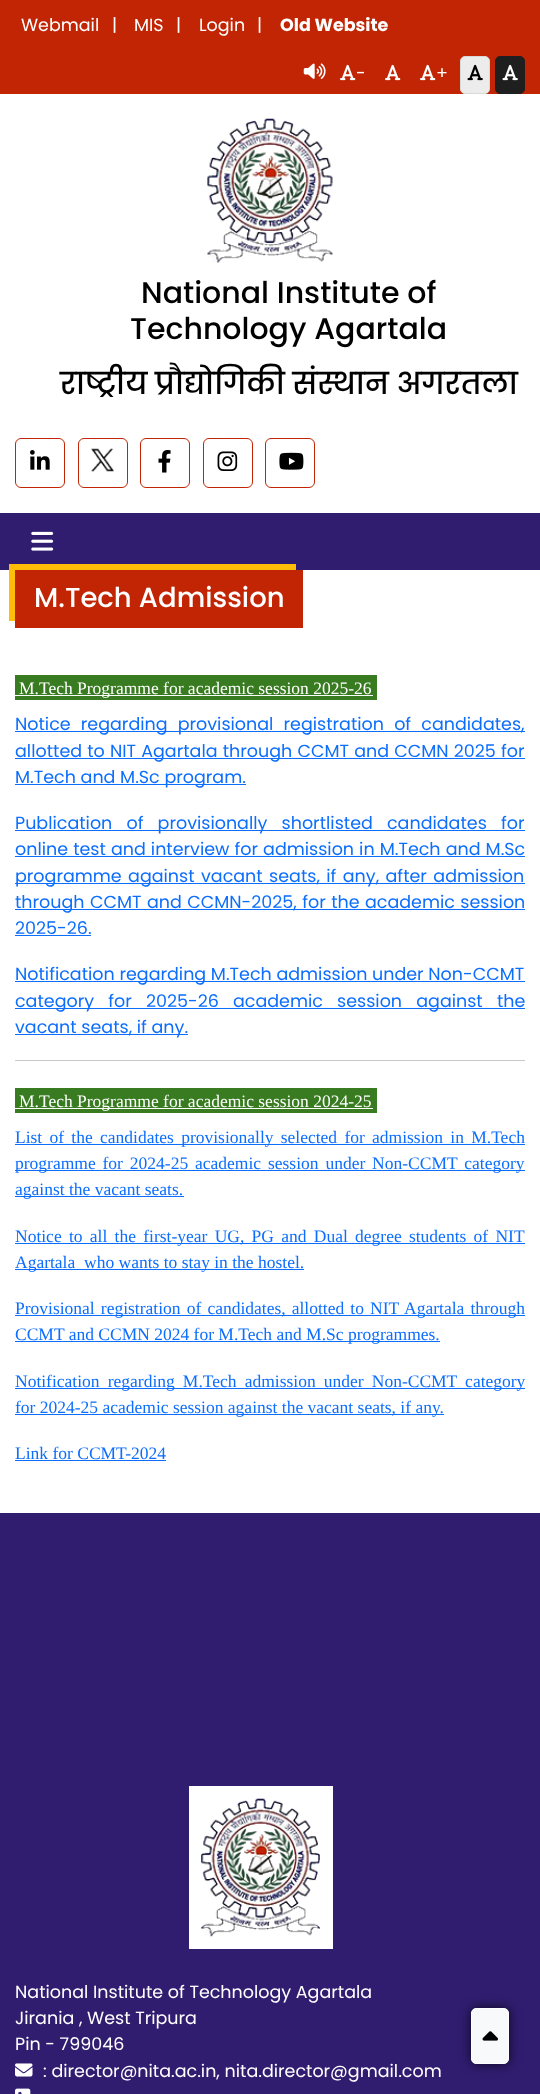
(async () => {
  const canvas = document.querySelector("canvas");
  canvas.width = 540;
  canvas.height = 2094;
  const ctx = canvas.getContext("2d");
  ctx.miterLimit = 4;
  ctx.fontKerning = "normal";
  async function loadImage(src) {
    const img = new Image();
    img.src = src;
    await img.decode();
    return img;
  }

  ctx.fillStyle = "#ffffff";
  ctx.fillRect(0, 0, 540, 2094);
  ctx.fillStyle = "#c22504";
  ctx.fillRect(0, 0, 540, 94);
  ctx.drawImage(await loadImage("img/1.png"), 303, 63, 23, 16);
  ctx.drawImage(await loadImage("img/2.png"), 340, 64, 16, 17);
  ctx.drawImage(await loadImage("img/2.png"), 385, 64, 16, 17);
  ctx.drawImage(await loadImage("img/2.png"), 420, 64, 16, 17);
  ctx.fillStyle = "#ececec";
  ctx.beginPath();
  ctx.roundRect(460.5, 56.5, 29, 37, 4.5);
  ctx.fill();
  ctx.strokeStyle = "#d9d9d9";
  ctx.stroke();
  ctx.drawImage(await loadImage("img/3.png"), 467, 64, 16, 17);
  ctx.fillStyle = "#1f1f1f";
  ctx.beginPath();
  ctx.roundRect(495.5, 56.5, 29, 37, 4.5);
  ctx.fill();
  ctx.strokeStyle = "#1f1f1f";
  ctx.stroke();
  ctx.drawImage(await loadImage("img/4.png"), 502, 64, 16, 17);
  ctx.drawImage(await loadImage("img/5.png"), 207, 118, 126, 145);
  ctx.beginPath();
  ctx.roundRect(15.5, 438.5, 49, 49, 5.5);
  ctx.strokeStyle = "#c22504";
  ctx.stroke();
  ctx.drawImage(await loadImage("img/6.png"), 30, 450, 20, 20);
  ctx.beginPath();
  ctx.roundRect(78.5, 438.5, 49, 49, 5.5);
  ctx.stroke();
  ctx.drawImage(await loadImage("img/7.png"), 91, 448, 23, 24);
  ctx.beginPath();
  ctx.roundRect(140.5, 438.5, 49, 49, 5.5);
  ctx.stroke();
  ctx.drawImage(await loadImage("img/8.png"), 158, 450, 13, 23);
  ctx.beginPath();
  ctx.roundRect(203.5, 438.5, 49, 49, 5.5);
  ctx.stroke();
  ctx.drawImage(await loadImage("img/9.png"), 217, 451, 21, 20);
  ctx.beginPath();
  ctx.roundRect(265.5, 438.5, 49, 49, 5.5);
  ctx.stroke();
  ctx.drawImage(await loadImage("img/10.png"), 279, 452, 25, 18);
  ctx.fillStyle = "#301d70";
  ctx.fillRect(0, 513, 540, 57);
  ctx.drawImage(await loadImage("img/11.png"), 31, 531, 23, 20);
  for (const [x, y, w, h, color] of [
    [9, 564, 287, 57, "#ffbd07"],
    [15, 570, 288, 58, "#c22504"],
    [15, 675, 362, 25, "#397b21"],
    [15, 695, 358, 1, "#ffffff"],
    [15, 731, 510, 1, "#0d6efd"],
    [15, 758, 510, 1, "#0d6efd"],
    [15, 784, 231, 1, "#0d6efd"],
    [15, 830, 510, 1, "#0d6efd"],
    [15, 856, 510, 1, "#0d6efd"],
    [15, 883, 510, 1, "#0d6efd"],
    [15, 909, 510, 1, "#0d6efd"],
    [15, 935, 76, 1, "#0d6efd"],
    [15, 981, 510, 1, "#0d6efd"],
    [15, 1008, 510, 1, "#0d6efd"],
    [15, 1034, 173, 1, "#0d6efd"],
    [15, 1060, 510, 1, "#c8c9ca"],
    [15, 1088, 362, 25, "#397b21"],
    [15, 1108, 358, 1, "#ffffff"],
    [15, 1144, 510, 1, "#0d6efd"],
    [15, 1170, 510, 1, "#0d6efd"],
    [15, 1196, 169, 1, "#0d6efd"],
    [15, 1243, 510, 1, "#0d6efd"],
    [15, 1269, 289, 1, "#0d6efd"],
    [15, 1315, 510, 1, "#0d6efd"],
    [15, 1341, 425, 1, "#0d6efd"],
    [15, 1388, 510, 1, "#0d6efd"],
    [15, 1414, 429, 1, "#0d6efd"],
    [15, 1460, 151, 1, "#0d6efd"],
    [0, 1513, 540, 581, "#301d70"],
    [189, 1786, 144, 163, "#ffffff"],
  ]) {
    ctx.fillStyle = color;
    ctx.fillRect(x, y, w, h);
  }
  ctx.drawImage(await loadImage("img/12.png"), 201, 1798, 119, 139);
  ctx.drawImage(await loadImage("img/13.png"), 15, 2063, 18, 14);
  ctx.drawImage(await loadImage("img/14.png"), 15, 2088, 16, 6);
  ctx.fillStyle = "rgba(0, 0, 0, 0.75)";
  ctx.filter = "blur(6px)";
  ctx.beginPath();
  ctx.roundRect(471, 2008, 38, 56, 5);
  ctx.fill();
  ctx.filter = "none";
  ctx.fillStyle = "#f8f9fa";
  ctx.beginPath();
  ctx.roundRect(471.5, 2008.5, 37, 55, 4.5);
  ctx.fill();
  ctx.strokeStyle = "#ffffff";
  ctx.stroke();
  ctx.drawImage(await loadImage("img/15.png"), 482, 2031, 16, 10);
  ctx.font = "17.5px Poppins";
  ctx.fillStyle = "#ffffff";
  for (const [text, x, y] of [
    ["Webmail", 21, 31],
    ["|", 112, 31],
    ["MIS", 134, 31],
    ["|", 176, 31],
    ["Login", 199, 31],
    ["|", 257, 31],
  ]) {
    ctx.fillText(text, x, y);
  }
  ctx.font = "bold 17.5px Poppins";
  ctx.fillText("Old Website", 280, 31);
  ctx.font = "17.5px Poppins";
  ctx.fillText("-", 356, 79);
  ctx.fillText("+", 436, 79);
  ctx.font = "500 30px Poppins";
  ctx.fillStyle = "#000000";
  for (const [text, x, y] of [
    ["National Institute of", 141, 303],
    ["Technology Agartala", 130, 339],
    ["राष्ट्रीय प्रौद्योगिकी संस्थान अगरतला", 60, 394],
  ]) {
    ctx.fillText(text, x, y);
  }
  ctx.font = "500 27.5px Poppins";
  ctx.fillStyle = "#ffffff";
  ctx.fillText("M.Tech Admission", 34, 607);
  ctx.font = "17.5px Liberation Serif";
  ctx.fillText("M.Tech Programme for academic session 2025-26", 19, 694);
  ctx.wordSpacing = "5.5px";
  ctx.font = "17.5px Poppins";
  ctx.fillStyle = "#0d6efd";
  ctx.fillText("Notice regarding provisional registration of candidates,", 15, 730);
  ctx.wordSpacing = "0.5px";
  ctx.fillText("allotted to NIT Agartala through CCMT and CCMN 2025 for", 15, 757);
  ctx.wordSpacing = "0px";
  ctx.fillText("M.Tech and M.Sc program.", 15, 783);
  ctx.wordSpacing = "9.5px";
  ctx.fillText("Publication of provisionally shortlisted candidates for", 15, 829);
  ctx.wordSpacing = "0.4px";
  ctx.fillText("online test and interview for admission in M.Tech and M.Sc", 15, 855);
  ctx.wordSpacing = "1.75px";
  ctx.fillText("programme against vacant seats, if any, after admission", 15, 882);
  ctx.wordSpacing = "0.75px";
  ctx.fillText("through CCMT and CCMN-2025, for the academic session", 15, 908);
  ctx.wordSpacing = "0px";
  ctx.fillText("2025-26.", 15, 934);
  ctx.fillText("Notification regarding M.Tech admission under Non-CCMT", 15, 980);
  ctx.wordSpacing = "9.5px";
  ctx.fillText("category for 2025-26 academic session against the", 15, 1007);
  ctx.wordSpacing = "0px";
  ctx.fillText("vacant seats, if any.", 15, 1033);
  ctx.font = "17.5px Liberation Serif";
  ctx.fillStyle = "#ffffff";
  ctx.fillText("M.Tech Programme for academic session 2024-25", 19, 1107);
  ctx.wordSpacing = "2.9px";
  ctx.fillStyle = "#0d6efd";
  ctx.fillText("List of the candidates provisionally selected for admission in M.Tech", 15, 1143);
  ctx.wordSpacing = "2.5px";
  ctx.fillText("programme for 2024-25 academic session under Non-CCMT category", 15, 1169);
  ctx.wordSpacing = "0px";
  ctx.fillText("against the vacant seats.", 15, 1195);
  ctx.wordSpacing = "2.9px";
  ctx.fillText("Notice to all the first-year UG, PG and Dual degree students of NIT", 15, 1242);
  ctx.wordSpacing = "0px";
  ctx.fillText("Agartala  who wants to stay in the hostel.", 15, 1268);
  ctx.wordSpacing = "1.75px";
  ctx.fillText("Provisional registration of candidates, allotted to NIT Agartala through", 15, 1314);
  ctx.wordSpacing = "0px";
  ctx.fillText("CCMT and CCMN 2024 for M.Tech and M.Sc programmes.", 15, 1340);
  ctx.wordSpacing = "3.75px";
  ctx.fillText("Notification regarding M.Tech admission under Non-CCMT category", 15, 1387);
  ctx.wordSpacing = "0px";
  ctx.fillText("for 2024-25 academic session against the vacant seats, if any.", 15, 1413);
  ctx.fillText("Link for CCMT-2024", 15, 1459);
  ctx.font = "17.5px Poppins";
  ctx.fillStyle = "#ffffff";
  for (const [text, x, y] of [
    ["National Institute of Technology Agartala", 15, 1998],
    ["Jirania , West Tripura", 15, 2024],
    ["Pin - 799046", 15, 2050],
    [": director@nita.ac.in, nita.director@gmail.com", 43, 2077],
  ]) {
    ctx.fillText(text, x, y);
  }
})();
